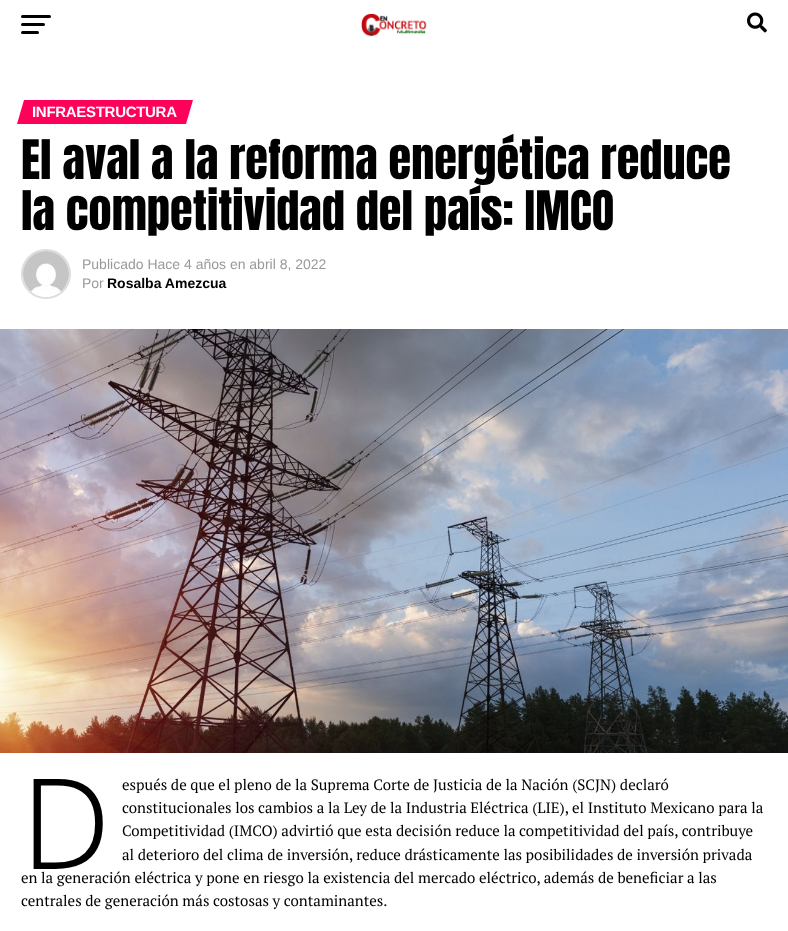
(async () => {
  const canvas = document.querySelector("canvas");
  canvas.width = 788;
  canvas.height = 931;
  const ctx = canvas.getContext("2d");
  ctx.miterLimit = 4;
  ctx.fontKerning = "normal";
  async function loadImage(src) {
    const img = new Image();
    img.src = src;
    await img.decode();
    return img;
  }
  let path;

  ctx.fillStyle = "#ffffff";
  ctx.fillRect(0, 0, 788, 931);
  ctx.fillStyle = "#000000";
  ctx.beginPath();
  ctx.roundRect(21, 15, 30, 3, 1.5);
  ctx.fill();
  ctx.beginPath();
  ctx.roundRect(21, 23, 24, 3, 1.5);
  ctx.fill();
  ctx.beginPath();
  ctx.roundRect(21, 31, 18, 3, 1.5);
  ctx.fill();
  ctx.drawImage(await loadImage("img/1.png"), 361, 13, 66, 24);
  ctx.drawImage(await loadImage("img/2.png"), 747, 12, 20, 21);
  ctx.fillStyle = "#ff005b";
  path = new Path2D("M24 100H193L186 124H17Z");
  ctx.fill(path);
  ctx.beginPath();
  ctx.arc(46, 274, 24, 0, Math.PI * 2);
  ctx.strokeStyle = "#dddddd";
  ctx.lineWidth = 2;
  ctx.stroke();
  ctx.drawImage(await loadImage("img/3.png"), 23, 251, 46, 46);
  ctx.drawImage(await loadImage("img/4.png"), 0, 329, 788, 424);
  ctx.letterSpacing = "-0.3px";
  ctx.font = "bold 15px Liberation Sans";
  ctx.fillStyle = "#ffffff";
  ctx.fillText("INFRAESTRUCTURA", 32, 117);
  ctx.letterSpacing = "0px";
  ctx.font = "46.4px Anton";
  ctx.fillStyle = "#000000";
  ctx.fillText("El aval a la reforma energética reduce", 21, 179);
  ctx.fillText("la competitividad del país: IMCO", 21, 230);
  ctx.font = "14px Liberation Sans";
  ctx.fillStyle = "#999999";
  ctx.fillText("Publicado Hace 4 años en abril 8, 2022", 82, 269);
  ctx.fillText("Por", 82, 288);
  ctx.font = "bold 14px Liberation Sans";
  ctx.fillStyle = "#000000";
  ctx.fillText("Rosalba Amezcua", 107, 288);
  ctx.font = "300 126px Noto Sans";
  ctx.fillText("D", 21, 869);
  ctx.font = "15px PT Serif";
  for (const [text, x, y] of [
    ["espués de que el pleno de la Suprema Corte de Justicia de la Nación (SCJN) declaró", 122, 790],
    ["constitucionales los cambios a la Ley de la Industria Eléctrica (LIE), el Instituto Mexicano para la", 122, 813],
    ["Competitividad (IMCO) advirtió que esta decisión reduce la competitividad del país, contribuye", 122, 836],
    ["al deterioro del clima de inversión, reduce drásticamente las posibilidades de inversión privada", 122, 860],
    ["en la generación eléctrica y pone en riesgo la existencia del mercado eléctrico, además de beneficiar a las", 21, 883],
    ["centrales de generación más costosas y contaminantes.", 21, 906],
  ]) {
    ctx.fillText(text, x, y);
  }
})();
